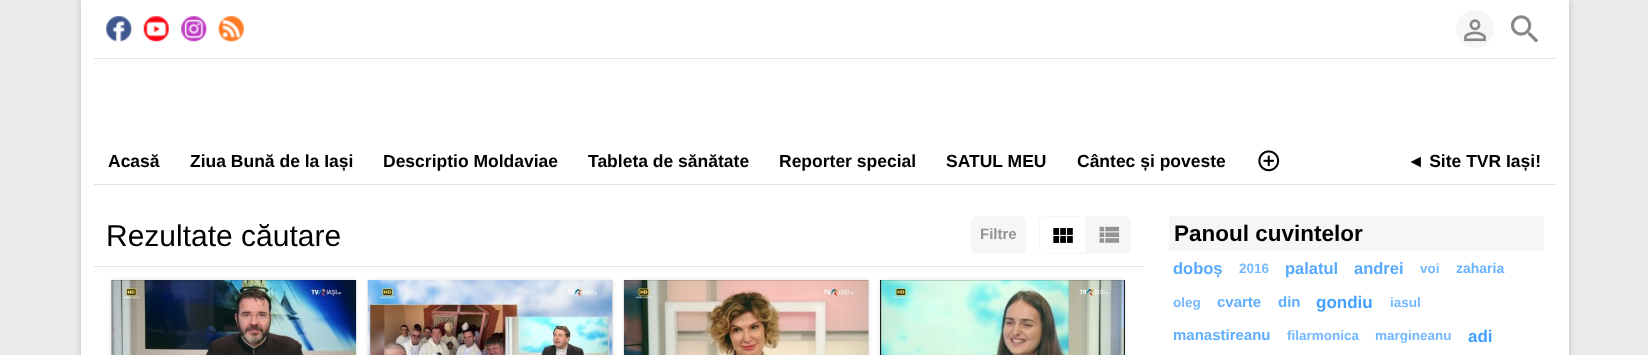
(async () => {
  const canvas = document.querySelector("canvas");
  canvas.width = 1648;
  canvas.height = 355;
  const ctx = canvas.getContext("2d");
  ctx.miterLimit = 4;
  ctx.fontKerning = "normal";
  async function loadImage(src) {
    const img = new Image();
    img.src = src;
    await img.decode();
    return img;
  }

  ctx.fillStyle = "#ebebeb";
  ctx.fillRect(0, 0, 1648, 355);
  ctx.fillStyle = "rgba(0, 0, 0, 0.2)";
  ctx.filter = "blur(3px)";
  ctx.beginPath();
  ctx.rect(81, 0, 1488, 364);
  ctx.fill();
  ctx.filter = "none";
  ctx.fillStyle = "#ffffff";
  ctx.fillRect(81, 0, 1488, 355);
  ctx.fillStyle = "#e3e3e3";
  ctx.fillRect(94, 58, 1462, 1);
  ctx.drawImage(await loadImage("img/1.png"), 106, 16, 26, 26);
  ctx.drawImage(await loadImage("img/2.png"), 143, 16, 26, 26);
  ctx.drawImage(await loadImage("img/3.png"), 181, 16, 26, 26);
  ctx.drawImage(await loadImage("img/4.png"), 218, 16, 26, 26);
  ctx.fillStyle = "#f6f6f6";
  ctx.beginPath();
  ctx.arc(1475, 29, 19, 0, Math.PI * 2);
  ctx.fill();
  ctx.drawImage(await loadImage("img/5.png"), 1464, 19, 22, 23);
  ctx.drawImage(await loadImage("img/6.png"), 1510, 15, 29, 28);
  ctx.fillStyle = "#e3e3e3";
  ctx.fillRect(94, 184, 1462, 1);
  ctx.drawImage(await loadImage("img/7.png"), 1258, 150, 22, 22);
  ctx.fillStyle = "#f6f6f6";
  ctx.beginPath();
  ctx.roundRect(971, 216, 55, 38, 6);
  ctx.fill();
  ctx.beginPath();
  ctx.roundRect(1039.5, 216.5, 46, 37, [5.5, 0, 0, 5.5]);
  ctx.strokeStyle = "#f6f6f6";
  ctx.stroke();
  ctx.drawImage(await loadImage("img/8.png"), 1053, 228, 20, 15);
  ctx.beginPath();
  ctx.roundRect(1086, 216, 45, 38, [0, 6, 6, 0]);
  ctx.fill();
  ctx.drawImage(await loadImage("img/9.png"), 1099, 226, 21, 17);
  ctx.fillStyle = "#e3e3e3";
  ctx.fillRect(94, 266, 1050, 1);
  ctx.fillStyle = "rgba(0, 0, 0, 0.1)";
  ctx.filter = "blur(2px)";
  ctx.beginPath();
  ctx.rect(111, 280, 245, 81);
  ctx.fill();
  ctx.filter = "none";
  ctx.fillStyle = "rgba(0, 0, 0, 0.05)";
  ctx.fillRect(111, 280, 1, 75);
  ctx.drawImage(await loadImage("img/10.png"), 111, 280, 246, 75);
  ctx.fillStyle = "rgba(0, 0, 0, 0.1)";
  ctx.filter = "blur(2px)";
  ctx.beginPath();
  ctx.rect(368, 280, 245, 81);
  ctx.fill();
  ctx.filter = "none";
  ctx.fillStyle = "rgba(0, 0, 0, 0.05)";
  ctx.fillRect(612, 280, 1, 75);
  ctx.drawImage(await loadImage("img/11.png"), 367, 280, 246, 75);
  ctx.fillStyle = "rgba(0, 0, 0, 0.1)";
  ctx.filter = "blur(2px)";
  ctx.beginPath();
  ctx.rect(624, 280, 245, 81);
  ctx.fill();
  ctx.filter = "none";
  ctx.fillStyle = "rgba(0, 0, 0, 0.05)";
  ctx.fillRect(868, 280, 1, 75);
  ctx.drawImage(await loadImage("img/12.png"), 623, 280, 246, 75);
  ctx.fillStyle = "rgba(0, 0, 0, 0.1)";
  ctx.filter = "blur(2px)";
  ctx.beginPath();
  ctx.rect(880, 280, 245, 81);
  ctx.fill();
  ctx.filter = "none";
  ctx.drawImage(await loadImage("img/13.png"), 880, 280, 245, 75);
  ctx.fillStyle = "#f6f6f6";
  ctx.beginPath();
  ctx.roundRect(1169, 216, 375, 35, 2.5);
  ctx.fill();
  ctx.font = "bold 17.5px Liberation Sans";
  ctx.fillStyle = "#000000";
  for (const [text, x, y] of [
    ["Acasă", 108, 167],
    ["Ziua Bună de la Iași", 190, 167],
    ["Descriptio Moldaviae", 383, 167],
    ["Tableta de sănătate", 588, 167],
    ["Reporter special", 779, 167],
    ["SATUL MEU", 946, 167],
    ["Cântec și poveste", 1077, 167],
    ["◄ Site TVR Iași!", 1407, 167],
  ]) {
    ctx.fillText(text, x, y);
  }
  ctx.font = "30px Liberation Sans";
  ctx.fillText("Rezultate căutare", 106, 246);
  ctx.font = "bold 15px Liberation Sans";
  ctx.fillStyle = "#949494";
  ctx.fillText("Filtre", 980, 239);
  ctx.font = "bold 22.5px Liberation Sans";
  ctx.fillStyle = "#000000";
  ctx.fillText("Panoul cuvintelor", 1174, 241);
  ctx.font = "bold 16.5px Liberation Sans";
  ctx.fillStyle = "#58aaff";
  ctx.fillText("doboș", 1173, 274);
  ctx.font = "bold 13.5px Liberation Sans";
  ctx.fillStyle = "#74b9ff";
  ctx.fillText("2016", 1239, 273);
  ctx.font = "bold 16.5px Liberation Sans";
  ctx.fillStyle = "#58aaff";
  ctx.fillText("palatul", 1285, 274);
  ctx.fillText("andrei", 1354, 274);
  ctx.font = "bold 13.5px Liberation Sans";
  ctx.fillStyle = "#74b9ff";
  ctx.fillText("voi", 1420, 273);
  ctx.font = "bold 14px Liberation Sans";
  ctx.fillStyle = "#6ab4ff";
  ctx.fillText("zaharia", 1456, 273);
  ctx.font = "bold 13.5px Liberation Sans";
  ctx.fillStyle = "#74b9ff";
  ctx.fillText("oleg", 1173, 307);
  ctx.font = "bold 15px Liberation Sans";
  ctx.fillStyle = "#61afff";
  ctx.fillText("cvarte", 1217, 307);
  ctx.fillText("din", 1278, 307);
  ctx.font = "bold 17px Liberation Sans";
  ctx.fillStyle = "#45a1ff";
  ctx.fillText("gondiu", 1316, 308);
  ctx.font = "bold 13.5px Liberation Sans";
  ctx.fillStyle = "#74b9ff";
  ctx.fillText("iasul", 1390, 307);
  ctx.font = "bold 15px Liberation Sans";
  ctx.fillStyle = "#61afff";
  ctx.fillText("manastireanu", 1173, 340);
  ctx.font = "bold 13.5px Liberation Sans";
  ctx.fillStyle = "#74b9ff";
  ctx.fillText("filarmonica", 1287, 340);
  ctx.fillText("margineanu", 1375, 340);
  ctx.font = "bold 17px Liberation Sans";
  ctx.fillStyle = "#45a1ff";
  ctx.fillText("adi", 1468, 342);
})();
